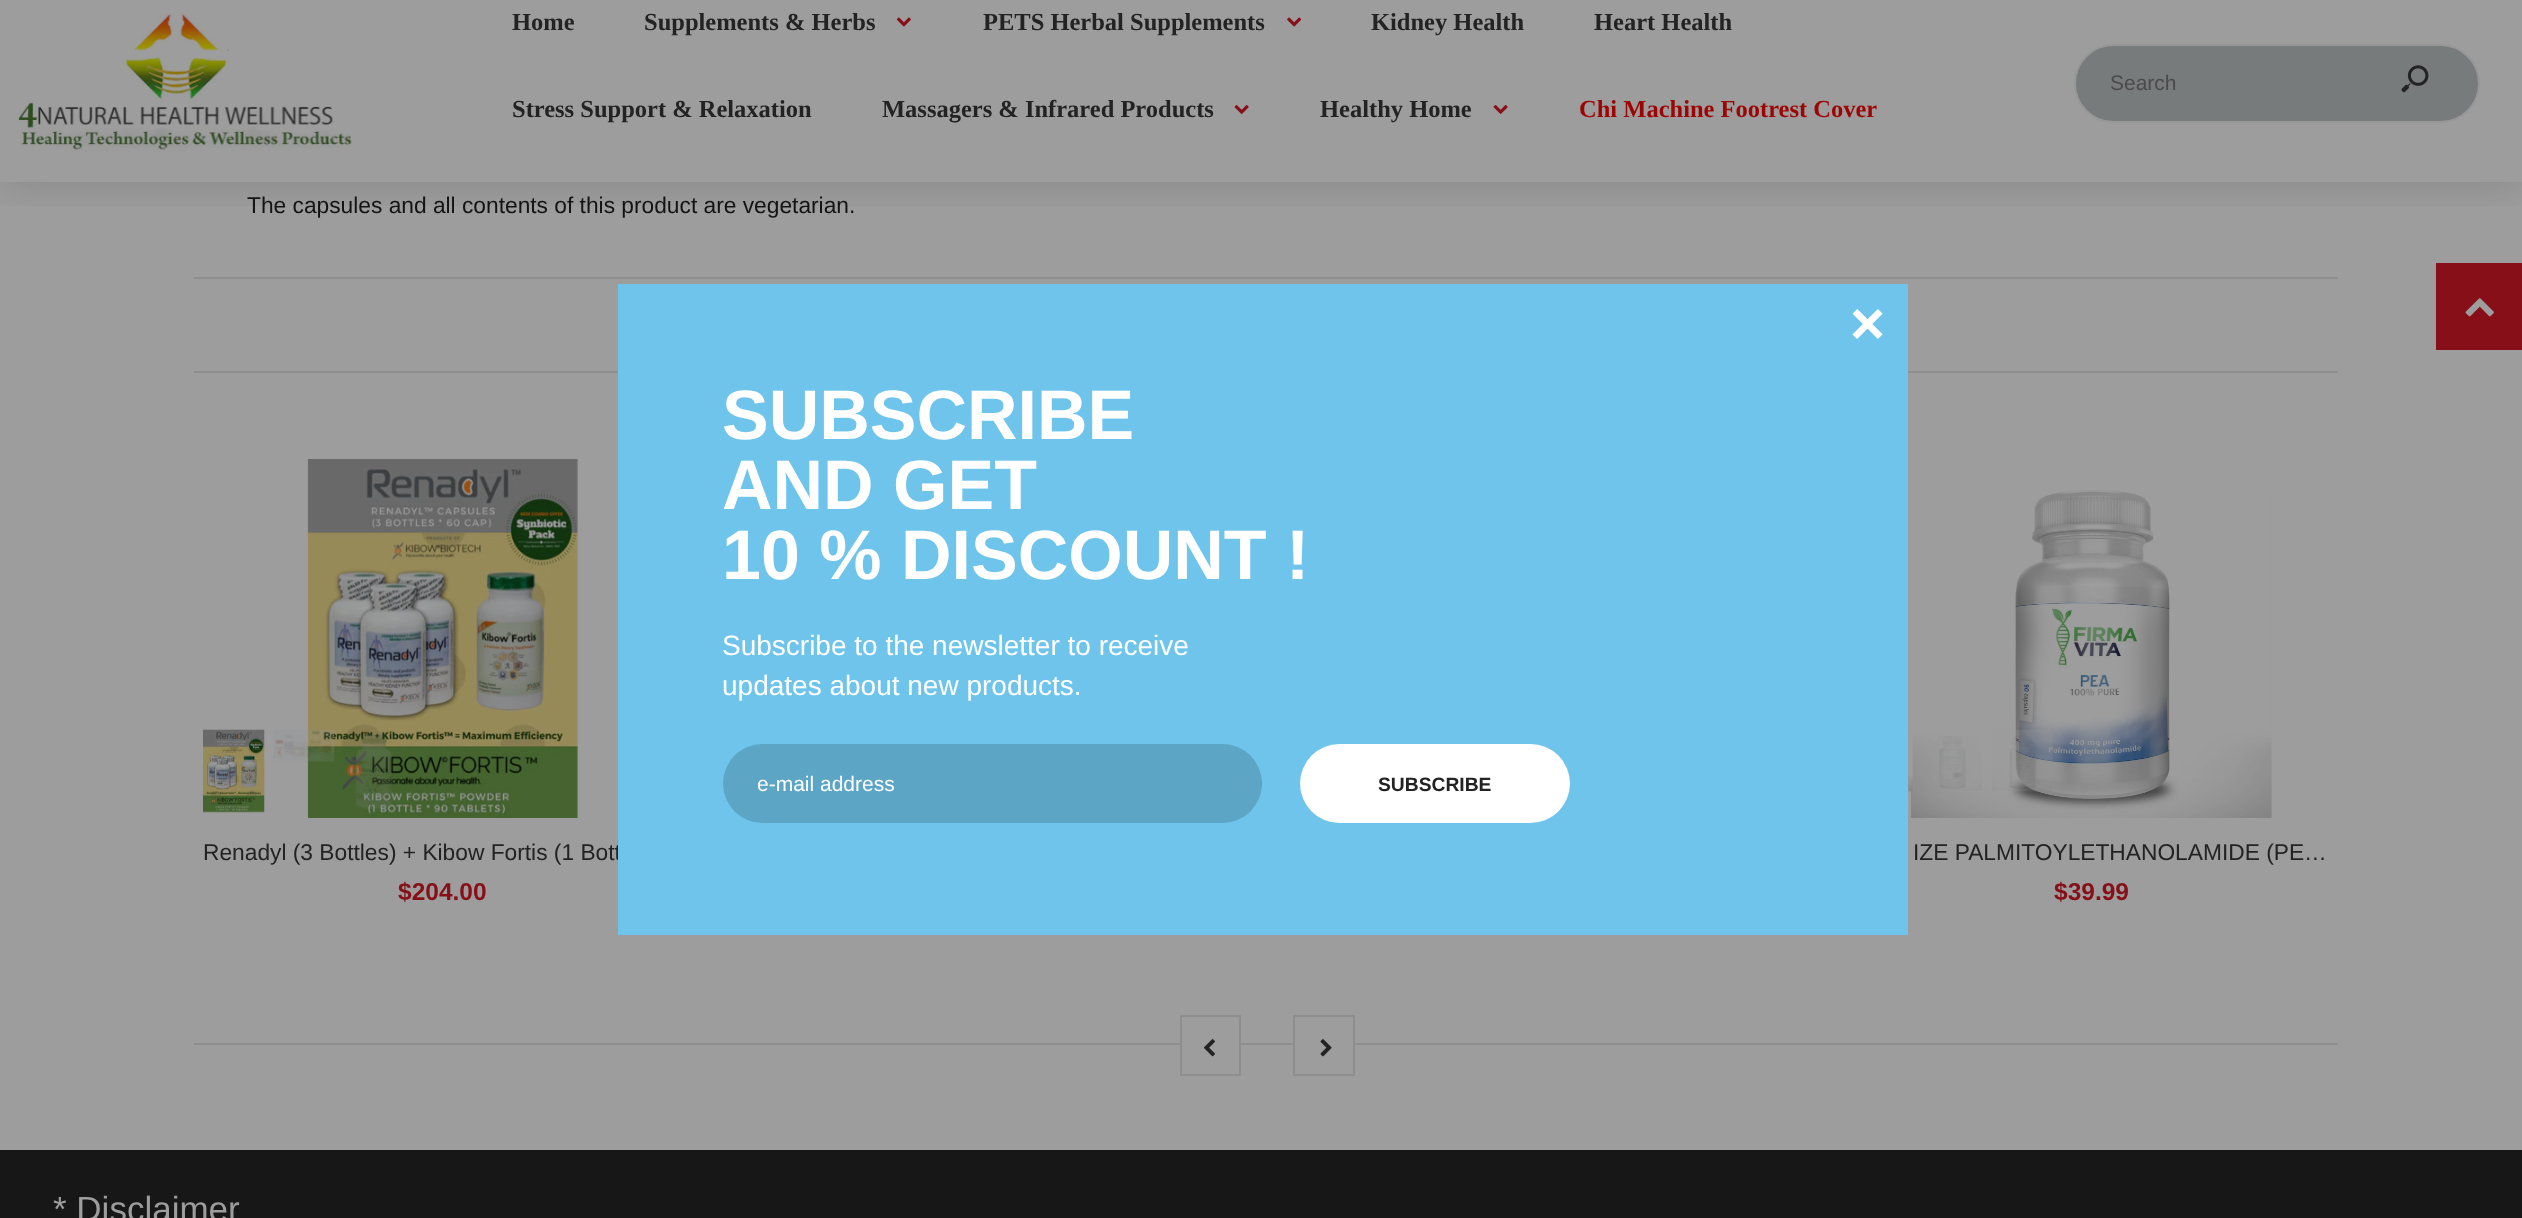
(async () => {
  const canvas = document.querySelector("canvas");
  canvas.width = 2522;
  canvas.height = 1218;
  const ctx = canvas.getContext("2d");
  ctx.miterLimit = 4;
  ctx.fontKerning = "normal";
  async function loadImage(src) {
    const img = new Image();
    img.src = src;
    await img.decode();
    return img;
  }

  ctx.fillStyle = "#9d9d9d";
  ctx.fillRect(0, 0, 2522, 1218);
  ctx.save();
  ctx.beginPath();
  ctx.rect(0, 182, 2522, 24);
  ctx.clip();
  ctx.fillStyle = "rgba(4, 4, 4, 0.15)";
  ctx.filter = "blur(22px)";
  ctx.beginPath();
  ctx.rect(0, -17, 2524, 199);
  ctx.fill();
  ctx.filter = "none";
  ctx.restore();
  ctx.drawImage(await loadImage("img/1.png"), 16, 14, 340, 139);
  ctx.drawImage(await loadImage("img/2.png"), 896, 17, 15, 10);
  ctx.drawImage(await loadImage("img/3.png"), 1287, 17, 15, 10);
  ctx.drawImage(await loadImage("img/4.png"), 1234, 105, 15, 9);
  ctx.drawImage(await loadImage("img/4.png"), 1493, 105, 15, 9);
  ctx.fillStyle = "#787b7c";
  ctx.beginPath();
  ctx.roundRect(2075, 45, 404, 77, 38.5);
  ctx.fill();
  ctx.strokeStyle = "#979797";
  ctx.lineWidth = 2;
  ctx.stroke();
  ctx.drawImage(await loadImage("img/5.png"), 2401, 65, 28, 28);
  ctx.fillStyle = "#8e8e8e";
  ctx.fillRect(194, 277, 2144, 2);
  ctx.fillRect(194, 371, 2144, 2);
  ctx.drawImage(await loadImage("img/6.png"), 203, 729, 62, 84);
  ctx.drawImage(await loadImage("img/9.png"), 307, 459, 271, 359);
  ctx.drawImage(await loadImage("img/7.png"), 273, 729, 62, 33);
  ctx.drawImage(await loadImage("img/8.png"), 355, 734, 38, 75);
  ctx.drawImage(await loadImage("img/10.png"), 1911, 490, 361, 328);
  ctx.drawImage(await loadImage("img/11.png"), 1908, 735, 5, 57);
  ctx.drawImage(await loadImage("img/12.png"), 1939, 736, 43, 55);
  ctx.drawImage(await loadImage("img/13.png"), 1992, 729, 61, 63);
  ctx.fillRect(194, 1043, 2144, 2);
  ctx.fillStyle = "#9d9d9d";
  ctx.fillRect(1182, 1043, 57, 2);
  ctx.strokeStyle = "#8e8e8e";
  ctx.strokeRect(1181, 1016, 59, 59);
  ctx.drawImage(await loadImage("img/14.png"), 1204, 1039, 11, 18);
  ctx.fillRect(1295, 1043, 58, 2);
  ctx.strokeRect(1294, 1016, 60, 59);
  ctx.drawImage(await loadImage("img/15.png"), 1320, 1039, 12, 18);
  ctx.fillStyle = "#171717";
  ctx.fillRect(0, 1150, 2522, 68);
  ctx.fillStyle = "#870f17";
  ctx.fillRect(2436, 263, 86, 87);
  ctx.drawImage(await loadImage("img/16.png"), 2465, 298, 29, 19);
  ctx.font = "bold 24.5px Liberation Serif";
  ctx.fillStyle = "#232323";
  for (const [text, x, y] of [
    ["Home", 512, 30],
    ["Supplements & Herbs", 644, 30],
    ["PETS Herbal Supplements", 983, 30],
    ["Kidney Health", 1371, 30],
    ["Heart Health", 1594, 30],
    ["Stress Support & Relaxation", 512, 117],
    ["Massagers & Infrared Products", 882, 117],
    ["Healthy Home", 1320, 117],
  ]) {
    ctx.fillText(text, x, y);
  }
  ctx.fillStyle = "#9d0404";
  ctx.fillText("Chi Machine Footrest Cover", 1579, 117);
  ctx.font = "21px Liberation Sans";
  ctx.fillStyle = "#4b4b4b";
  ctx.fillText("Search", 2110, 90);
  ctx.font = "22.75px Liberation Sans";
  ctx.fillStyle = "#141414";
  ctx.fillText("The capsules and all contents of this product are vegetarian.", 247, 213);
  ctx.fillStyle = "#232323";
  ctx.fillText("Renadyl (3 Bottles) + Kibow Fortis (1 Bott", 203, 860);
  ctx.font = "bold 24.5px Liberation Sans";
  ctx.fillStyle = "#870f17";
  ctx.fillText("$204.00", 398, 900);
  ctx.font = "22.75px Liberation Sans";
  ctx.fillStyle = "#232323";
  ctx.fillText("IZE PALMITOYLETHANOLAMIDE (PE…", 1913, 860);
  ctx.font = "bold 24.5px Liberation Sans";
  ctx.fillStyle = "#870f17";
  ctx.fillText("$39.99", 2054, 900);
  ctx.font = "35px Liberation Sans";
  ctx.fillStyle = "#9d9d9d";
  ctx.fillText("* Disclaimer", 53, 1221);
  ctx.fillStyle = "#6ec4eb";
  ctx.fillRect(618, 284, 1290, 651);
  ctx.font = "bold 60px Liberation Sans";
  ctx.fillStyle = "#ffffff";
  ctx.fillText("×", 1850, 344);
  ctx.font = "bold 70px Liberation Sans";
  for (const [text, x, y] of [
    ["SUBSCRIBE", 722, 439],
    ["AND GET", 722, 509],
    ["10 % DISCOUNT !", 722, 579],
  ]) {
    ctx.fillText(text, x, y);
  }
  ctx.font = "28px Liberation Sans";
  ctx.fillText("Subscribe to the newsletter to receive", 722, 655);
  ctx.fillText("updates about new products.", 722, 695);
  ctx.fillStyle = "#5ca5c5";
  ctx.beginPath();
  ctx.roundRect(723, 744, 539, 79, 39.5);
  ctx.fill();
  ctx.save();
  ctx.beginPath();
  ctx.rect(758, 772, 469, 24);
  ctx.clip();
  ctx.font = "21px Liberation Sans";
  ctx.fillStyle = "#ffffff";
  ctx.fillText("e-mail address", 757, 791);
  ctx.restore();
  ctx.fillStyle = "#ffffff";
  ctx.beginPath();
  ctx.roundRect(1300, 744, 270, 79, 39.5);
  ctx.fill();
  ctx.font = "bold 19.25px Liberation Sans";
  ctx.fillStyle = "#232323";
  ctx.fillText("SUBSCRIBE", 1378, 791);
})();
